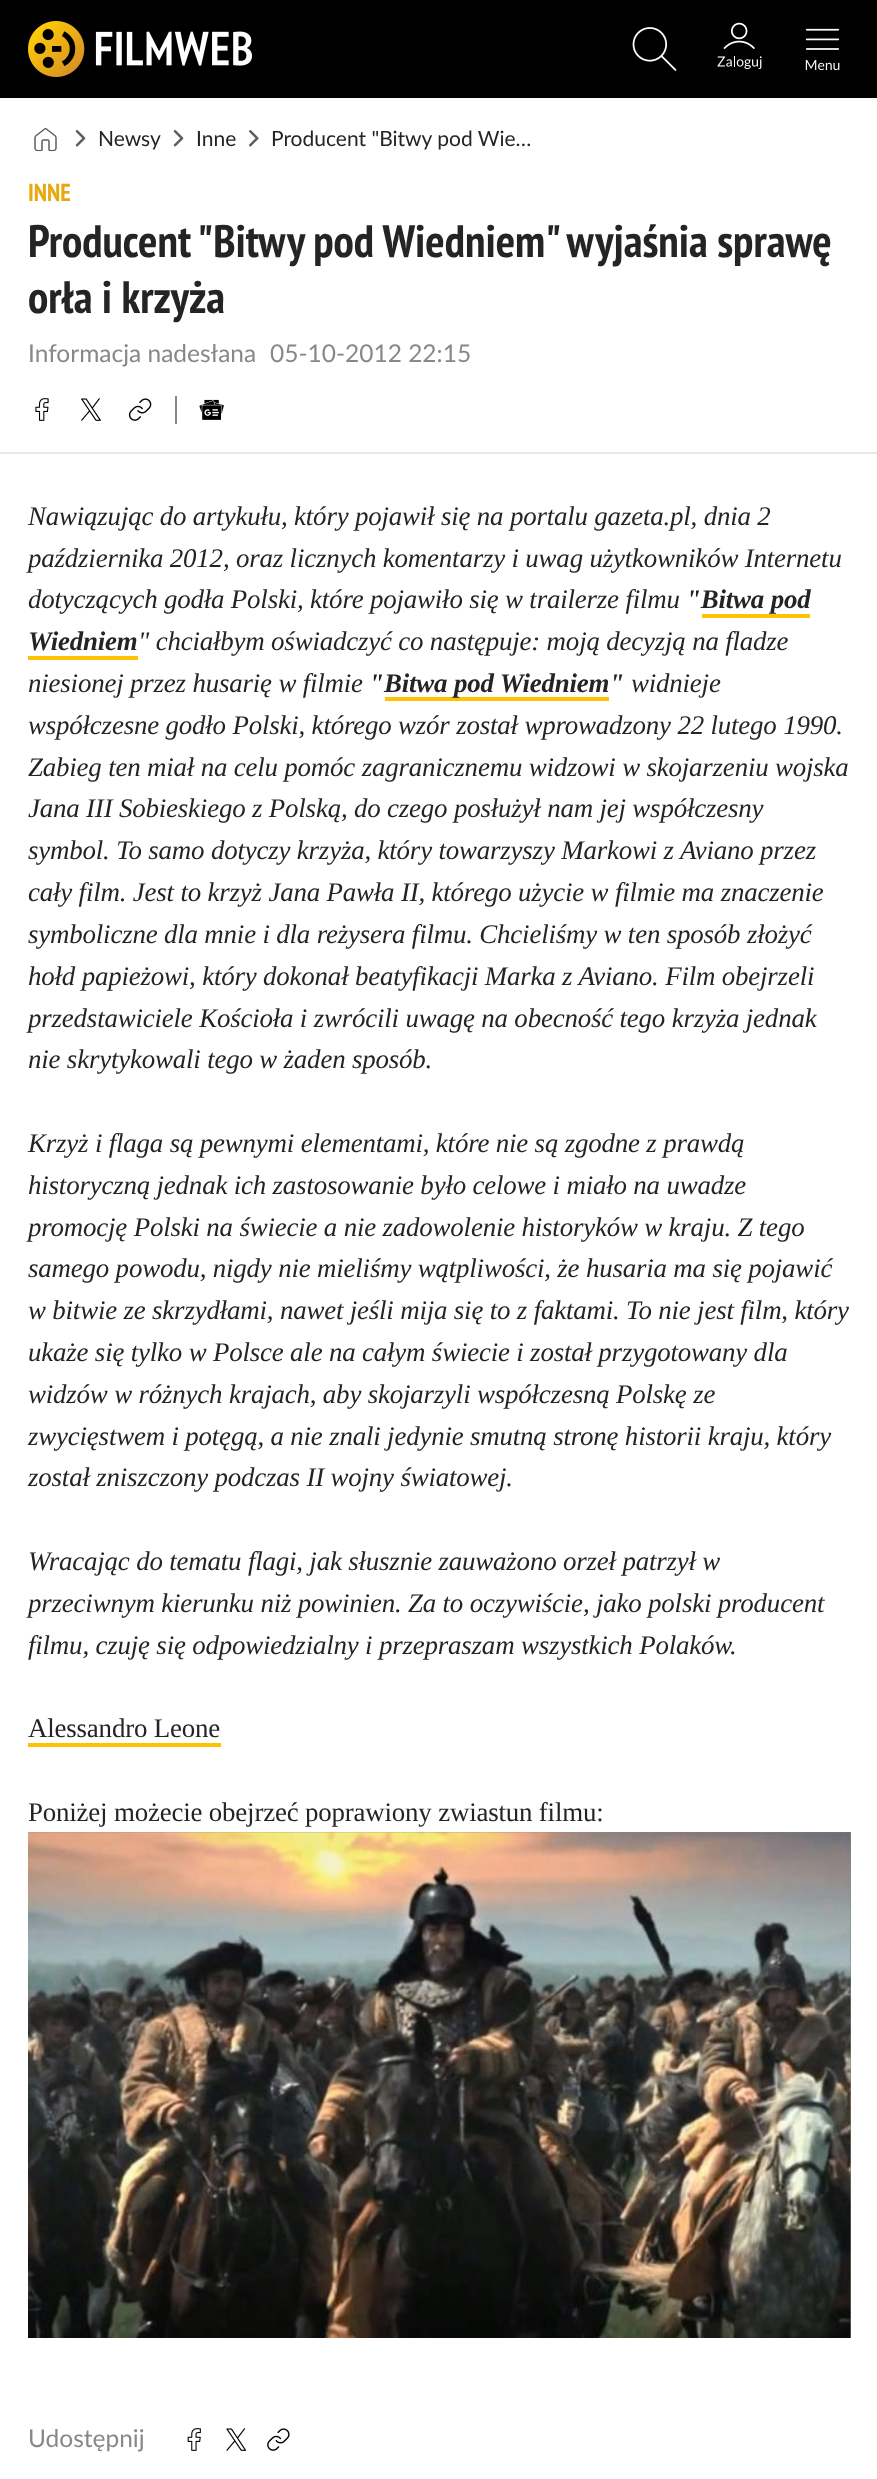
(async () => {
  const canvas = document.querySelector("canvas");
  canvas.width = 877;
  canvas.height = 2479;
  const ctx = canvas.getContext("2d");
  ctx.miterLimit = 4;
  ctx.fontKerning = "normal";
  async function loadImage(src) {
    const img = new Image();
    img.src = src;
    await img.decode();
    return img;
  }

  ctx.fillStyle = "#ffffff";
  ctx.fillRect(0, 0, 877, 2479);
  ctx.fillStyle = "#000000";
  ctx.fillRect(0, 0, 877, 98);
  ctx.drawImage(await loadImage("img/1.png"), 28, 21, 224, 56);
  ctx.drawImage(await loadImage("img/2.png"), 632, 27, 45, 44);
  ctx.drawImage(await loadImage("img/3.png"), 717, 22, 45, 48);
  ctx.drawImage(await loadImage("img/4.png"), 805, 28, 35, 43);
  ctx.fillStyle = "#e8e8e8";
  ctx.fillRect(0, 452, 877, 2);
  ctx.drawImage(await loadImage("img/5.png"), 34, 128, 23, 24);
  ctx.drawImage(await loadImage("img/6.png"), 75, 130, 11, 17);
  ctx.drawImage(await loadImage("img/6.png"), 173, 130, 11, 17);
  ctx.drawImage(await loadImage("img/7.png"), 249, 130, 10, 17);
  ctx.drawImage(await loadImage("img/8.png"), 35, 398, 14, 23);
  ctx.drawImage(await loadImage("img/9.png"), 81, 398, 20, 23);
  ctx.drawImage(await loadImage("img/10.png"), 128, 398, 24, 23);
  ctx.fillStyle = "#888888";
  ctx.fillRect(175, 396, 2, 28);
  ctx.drawImage(await loadImage("img/11.png"), 199, 399, 25, 21);
  for (const [x, y, w, h, color] of [
    [702, 614, 108, 4, "#ffc200"],
    [28, 656, 110, 4, "#ffc200"],
    [385, 697, 224, 4, "#ffc200"],
    [28, 1743, 193, 4, "#ffc200"],
    [28, 1832, 823, 506, "#888888"],
  ]) {
    ctx.fillStyle = color;
    ctx.fillRect(x, y, w, h);
  }
  ctx.drawImage(await loadImage("img/12.png"), 28, 1832, 823, 506);
  ctx.drawImage(await loadImage("img/13.png"), 187, 2428, 14, 23);
  ctx.drawImage(await loadImage("img/14.png"), 226, 2428, 21, 23);
  ctx.drawImage(await loadImage("img/15.png"), 267, 2428, 23, 23);
  ctx.font = "21px Lato";
  ctx.fillStyle = "#242424";
  for (const [text, x, y] of [
    ["Newsy", 98, 146],
    ["Inne", 196, 146],
    ["Producent \"Bitwy pod Wie…", 271, 146],
  ]) {
    ctx.fillText(text, x, y);
  }
  ctx.font = "bold 24.5px PT Sans Narrow";
  ctx.fillStyle = "#e7a90f";
  ctx.fillText("INNE", 28, 201);
  ctx.font = "bold 45.5px PT Sans Narrow";
  ctx.fillStyle = "#242424";
  ctx.fillText("Producent \"Bitwy pod Wiedniem\" wyjaśnia sprawę", 28, 257);
  ctx.fillText("orła i krzyża", 28, 313);
  ctx.font = "24.5px Lato";
  ctx.fillStyle = "#888888";
  ctx.fillText("Informacja nadesłana", 28, 362);
  ctx.fillText("05-10-2012 22:15", 270, 362);
  ctx.letterSpacing = "-0.18px";
  ctx.font = "italic 26.9px Liberation Serif";
  ctx.fillStyle = "#242424";
  for (const [text, x, y] of [
    ["Nawiązując do artykułu, który pojawił się na portalu gazeta.pl, dnia 2", 28, 525],
    ["października 2012, oraz licznych komentarzy i uwag użytkowników Internetu", 28, 567],
    ["dotyczących godła Polski, które pojawiło się w trailerze filmu", 28, 608],
  ]) {
    ctx.fillText(text, x, y);
  }
  ctx.font = "italic bold 26.9px Liberation Serif";
  ctx.fillText("\"Bitwa pod", 686, 608);
  ctx.fillText("Wiedniem", 28, 650);
  ctx.font = "italic 26.9px Liberation Serif";
  ctx.fillText("\" chciałbym oświadczyć co następuje: moją decyzją na fladze", 138, 650);
  ctx.fillText("niesionej przez husarię w filmie", 28, 692);
  ctx.font = "italic bold 26.9px Liberation Serif";
  ctx.fillText("\"", 369, 692);
  ctx.fillText("Bitwa pod Wiedniem\"", 384, 692);
  ctx.font = "italic 26.9px Liberation Serif";
  for (const [text, x, y] of [
    ["widnieje", 631, 692],
    ["współczesne godło Polski, którego wzór został wprowadzony 22 lutego 1990.", 28, 734],
    ["Zabieg ten miał na celu pomóc zagranicznemu widzowi w skojarzeniu wojska", 28, 776],
    ["Jana III Sobieskiego z Polską, do czego posłużył nam jej współczesny", 28, 817],
    ["symbol. To samo dotyczy krzyża, który towarzyszy Markowi z Aviano przez", 28, 859],
    ["cały film. Jest to krzyż Jana Pawła II, którego użycie w filmie ma znaczenie", 28, 901],
    ["symboliczne dla mnie i dla reżysera filmu. Chcieliśmy w ten sposób złożyć", 28, 943],
    ["hołd papieżowi, który dokonał beatyfikacji Marka z Aviano. Film obejrzeli", 28, 985],
    ["przedstawiciele Kościoła i zwrócili uwagę na obecność tego krzyża jednak", 28, 1027],
    ["nie skrytykowali tego w żaden sposób.", 28, 1068],
    ["Krzyż i flaga są pewnymi elementami, które nie są zgodne z prawdą", 28, 1152],
    ["historyczną jednak ich zastosowanie było celowe i miało na uwadze", 28, 1194],
    ["promocję Polski na świecie a nie zadowolenie historyków w kraju. Z tego", 28, 1236],
    ["samego powodu, nigdy nie mieliśmy wątpliwości, że husaria ma się pojawić", 28, 1277],
    ["w bitwie ze skrzydłami, nawet jeśli mija się to z faktami. To nie jest film, który", 28, 1319],
    ["ukaże się tylko w Polsce ale na całym świecie i został przygotowany dla", 28, 1361],
    ["widzów w różnych krajach, aby skojarzyli współczesną Polskę ze", 28, 1403],
    ["zwycięstwem i potęgą, a nie znali jedynie smutną stronę historii kraju, który", 28, 1445],
    ["został zniszczony podczas II wojny światowej.", 28, 1486],
    ["Wracając do tematu flagi, jak słusznie zauważono orzeł patrzył w", 28, 1570],
    ["przeciwnym kierunku niż powinien. Za to oczywiście, jako polski producent", 28, 1612],
    ["filmu, czuję się odpowiedzialny i przepraszam wszystkich Polaków.", 28, 1654],
  ]) {
    ctx.fillText(text, x, y);
  }
  ctx.font = "26.9px Liberation Serif";
  ctx.fillText("Alessandro Leone", 28, 1737);
  ctx.fillText("Poniżej możecie obejrzeć poprawiony zwiastun filmu:", 28, 1821);
  ctx.letterSpacing = "0px";
  ctx.font = "24.5px Lato";
  ctx.fillStyle = "#888888";
  ctx.fillText("Udostępnij", 28, 2447);
})();
